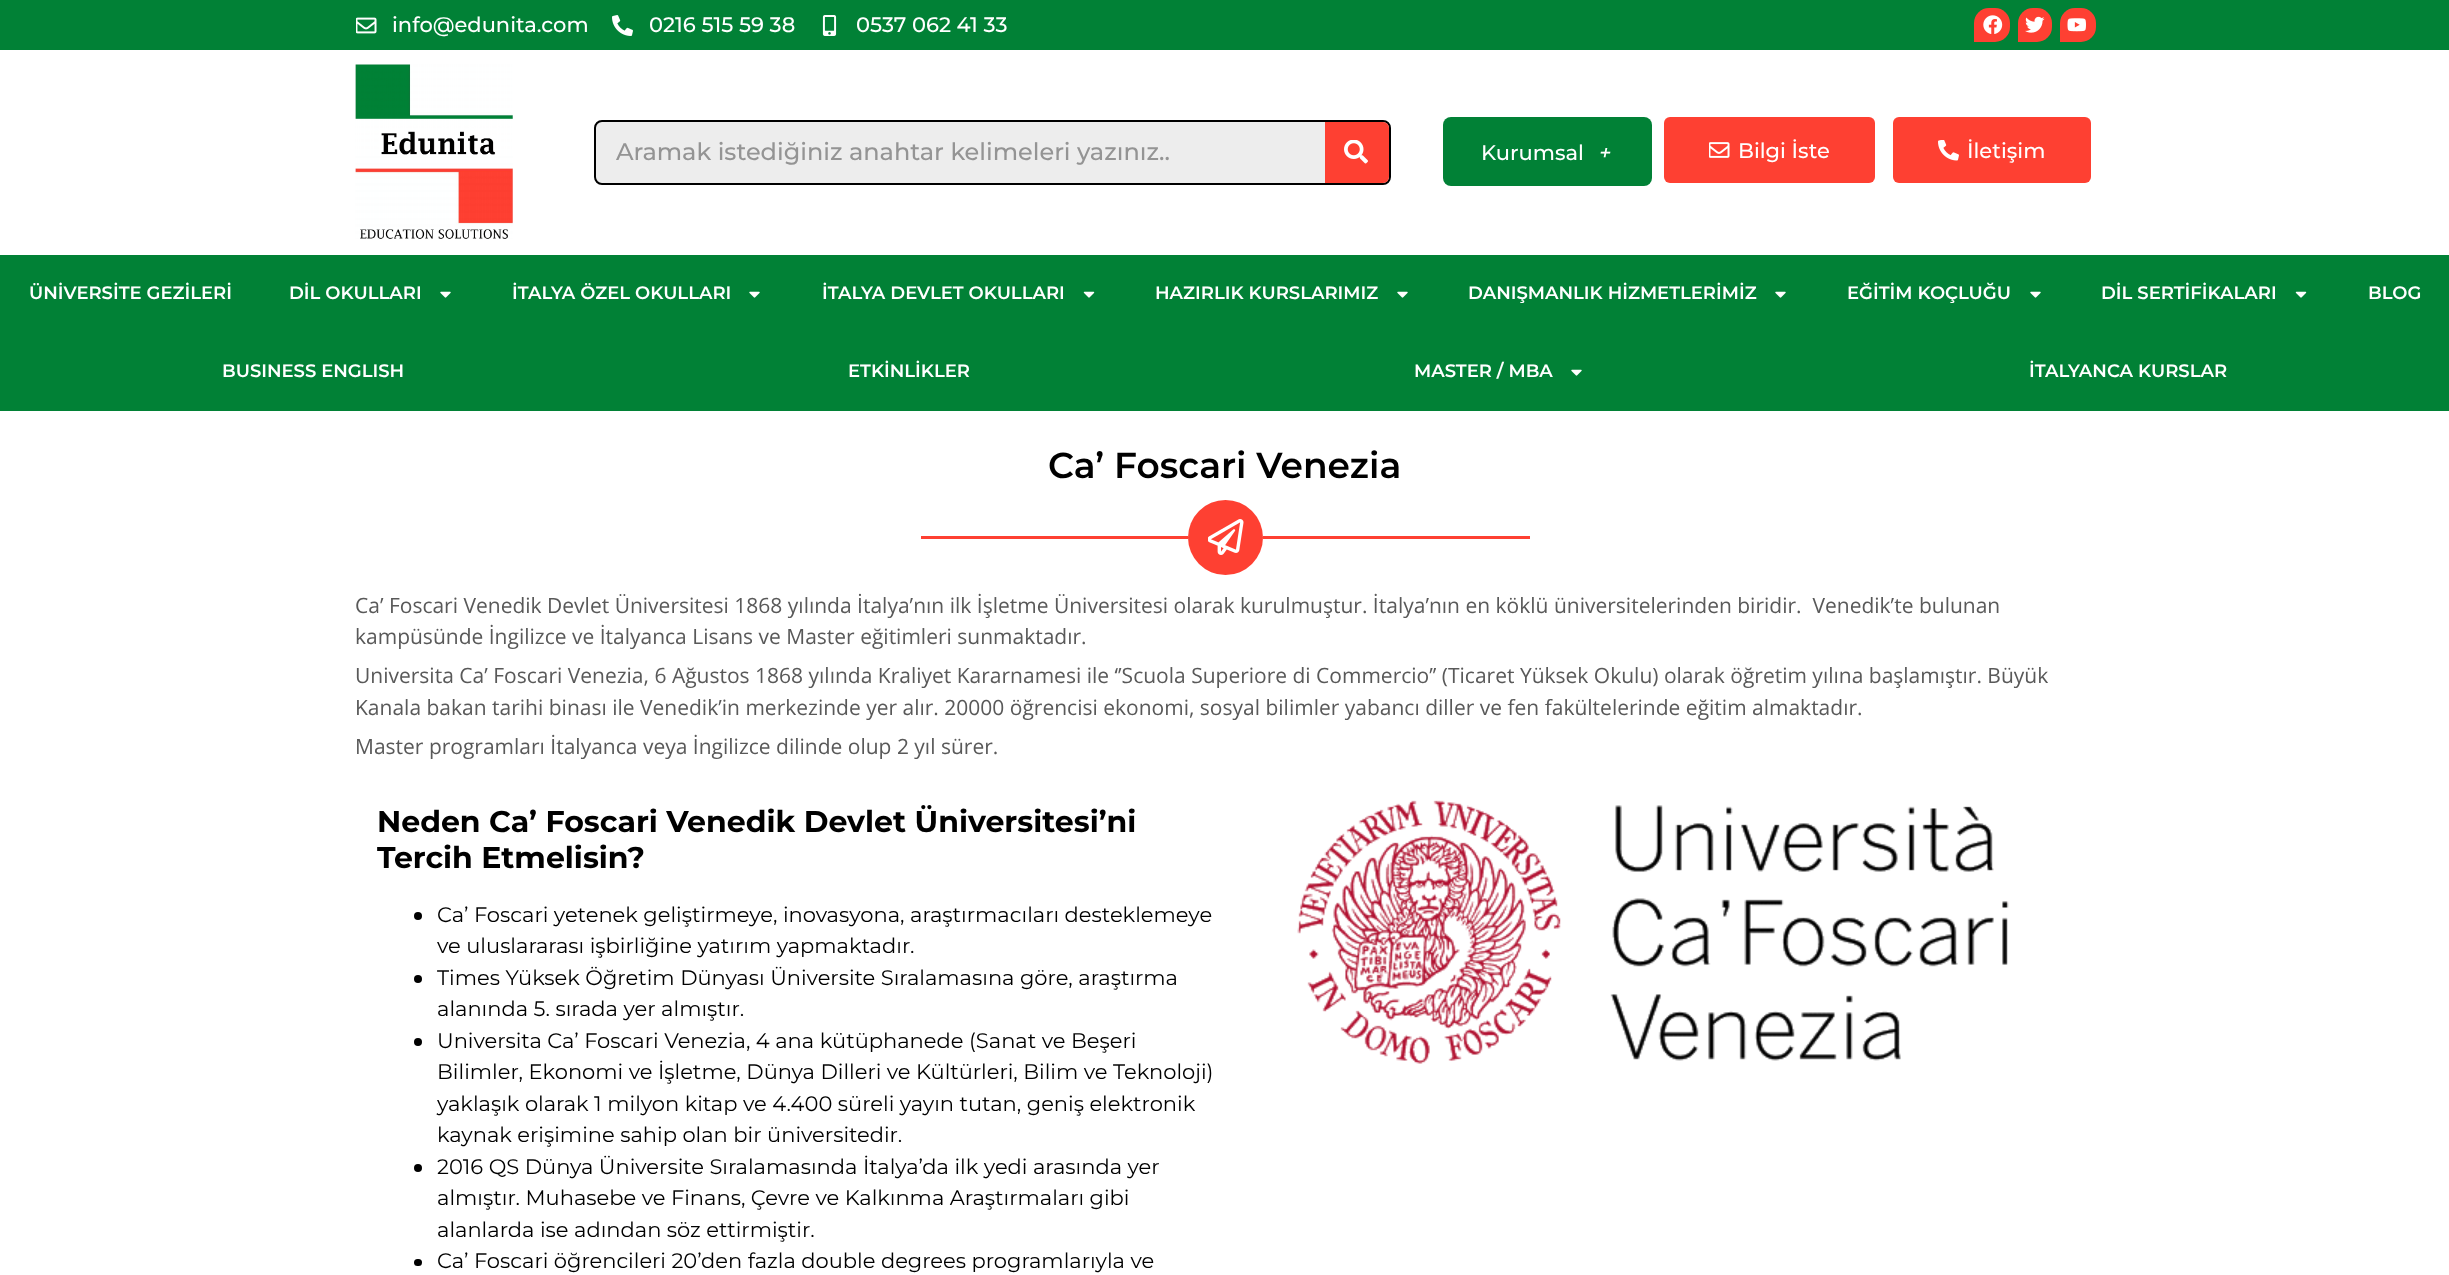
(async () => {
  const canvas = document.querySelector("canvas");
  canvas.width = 2449;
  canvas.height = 1275;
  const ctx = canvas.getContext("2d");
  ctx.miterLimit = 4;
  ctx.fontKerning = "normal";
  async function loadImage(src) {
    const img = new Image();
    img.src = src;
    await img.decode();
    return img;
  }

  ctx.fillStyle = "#ffffff";
  ctx.fillRect(0, 0, 2449, 1275);
  ctx.fillStyle = "#018136";
  ctx.fillRect(0, 0, 2449, 50);
  ctx.drawImage(await loadImage("img/1.png"), 356, 17, 21, 17);
  ctx.drawImage(await loadImage("img/2.png"), 612, 15, 21, 21);
  ctx.drawImage(await loadImage("img/3.png"), 822, 15, 15, 21);
  ctx.fillStyle = "#fe4032";
  ctx.beginPath();
  ctx.roundRect(1974, 8, 36, 34, [15, 15, 15, 0]);
  ctx.fill();
  ctx.drawImage(await loadImage("img/4.png"), 1983, 15, 20, 19);
  ctx.beginPath();
  ctx.roundRect(2018, 8, 34, 34, [15, 15, 15, 0]);
  ctx.fill();
  ctx.drawImage(await loadImage("img/5.png"), 2025, 16, 20, 17);
  ctx.beginPath();
  ctx.roundRect(2060, 8, 36, 34, [15, 15, 15, 0]);
  ctx.fill();
  ctx.drawImage(await loadImage("img/6.png"), 2067, 18, 19, 14);
  ctx.drawImage(await loadImage("img/7.png"), 355, 64, 158, 175);
  ctx.fillStyle = "#ededed";
  ctx.beginPath();
  ctx.roundRect(595, 121, 795, 63, 7);
  ctx.fill();
  ctx.strokeStyle = "#000000";
  ctx.lineWidth = 2;
  ctx.stroke();
  ctx.fillStyle = "#fe4032";
  ctx.beginPath();
  ctx.roundRect(1325, 122, 64, 61, [0, 6, 6, 0]);
  ctx.fill();
  ctx.drawImage(await loadImage("img/8.png"), 1344, 140, 24, 24);
  ctx.fillStyle = "#018136";
  ctx.beginPath();
  ctx.roundRect(1443, 117, 209, 69, 8);
  ctx.fill();
  ctx.fillStyle = "#fe4032";
  ctx.beginPath();
  ctx.roundRect(1664, 117, 211, 66, 6);
  ctx.fill();
  ctx.drawImage(await loadImage("img/9.png"), 1709, 142, 21, 16);
  ctx.beginPath();
  ctx.roundRect(1893, 117, 198, 66, 6);
  ctx.fill();
  ctx.drawImage(await loadImage("img/10.png"), 1938, 140, 21, 21);
  ctx.fillStyle = "#018136";
  ctx.fillRect(0, 255, 2449, 156);
  ctx.drawImage(await loadImage("img/11.png"), 440, 291, 11, 7);
  ctx.drawImage(await loadImage("img/11.png"), 749, 291, 11, 7);
  ctx.drawImage(await loadImage("img/12.png"), 1083, 291, 12, 7);
  ctx.drawImage(await loadImage("img/11.png"), 1397, 291, 11, 7);
  ctx.drawImage(await loadImage("img/11.png"), 1775, 291, 11, 7);
  ctx.drawImage(await loadImage("img/11.png"), 2030, 291, 11, 7);
  ctx.drawImage(await loadImage("img/12.png"), 2295, 291, 12, 7);
  ctx.drawImage(await loadImage("img/11.png"), 1571, 369, 11, 7);
  ctx.fillStyle = "#fe4032";
  ctx.fillRect(921, 536, 267, 3);
  ctx.beginPath();
  ctx.arc(1225.5, 537.5, 37.5, 0, Math.PI * 2);
  ctx.fill();
  ctx.drawImage(await loadImage("img/13.png"), 1208, 519, 36, 36);
  ctx.fillRect(1263, 536, 267, 3);
  ctx.fillStyle = "#000000";
  ctx.beginPath();
  ctx.arc(418, 916, 4, 0, Math.PI * 2);
  ctx.fill();
  ctx.beginPath();
  ctx.arc(418, 979, 4, 0, Math.PI * 2);
  ctx.fill();
  ctx.beginPath();
  ctx.arc(418, 1042, 4, 0, Math.PI * 2);
  ctx.fill();
  ctx.beginPath();
  ctx.arc(418, 1168, 4, 0, Math.PI * 2);
  ctx.fill();
  ctx.beginPath();
  ctx.roundRect(414, 1259, 8, 7, 3.5);
  ctx.fill();
  ctx.drawImage(await loadImage("img/14.png"), 1297, 800, 712, 264);
  ctx.font = "500 21px Montserrat";
  ctx.fillStyle = "#ffffff";
  for (const [text, x, y] of [
    ["info@edunita.com", 392, 32],
    ["0216 515 59 38", 649, 32],
    ["0537 062 41 33", 856, 32],
  ]) {
    ctx.fillText(text, x, y);
  }
  ctx.font = "500 24px Montserrat";
  ctx.fillStyle = "#949494";
  ctx.fillText("Aramak istediğiniz anahtar kelimeleri yazınız..", 616, 160);
  ctx.font = "500 21px Montserrat";
  ctx.fillStyle = "#ffffff";
  ctx.fillText("Kurumsal", 1481, 160);
  ctx.font = "italic 500 21px Montserrat";
  ctx.fillText("+", 1599, 160);
  ctx.font = "500 21px Montserrat";
  ctx.fillText("Bilgi İste", 1738, 158);
  ctx.fillText("İletişim", 1967, 158);
  ctx.font = "600 18px Montserrat";
  for (const [text, x, y] of [
    ["ÜNİVERSİTE GEZİLERİ", 29, 299],
    ["DİL OKULLARI", 289, 299],
    ["İTALYA ÖZEL OKULLARI", 512, 299],
    ["İTALYA DEVLET OKULLARI", 822, 299],
    ["HAZIRLIK KURSLARIMIZ", 1155, 299],
    ["DANIŞMANLIK HİZMETLERİMİZ", 1468, 299],
    ["EĞİTİM KOÇLUĞU", 1847, 299],
    ["DİL SERTİFİKALARI", 2101, 299],
    ["BLOG", 2368, 299],
    ["BUSINESS ENGLISH", 222, 377],
    ["ETKİNLİKLER", 848, 377],
    ["MASTER / MBA", 1414, 377],
    ["İTALYANCA KURSLAR", 2029, 377],
  ]) {
    ctx.fillText(text, x, y);
  }
  ctx.font = "600 36px Montserrat";
  ctx.fillStyle = "#000000";
  ctx.fillText("Ca’ Foscari Venezia", 1048, 478);
  ctx.font = "21px Open Sans";
  ctx.fillStyle = "#595959";
  for (const [text, x, y] of [
    ["Ca’ Foscari Venedik Devlet Üniversitesi 1868 yılında İtalya’nın ilk İşletme Üniversitesi olarak kurulmuştur. İtalya’nın en köklü üniversitelerinden biridir.  Venedik’te bulunan", 355, 613],
    ["kampüsünde İngilizce ve İtalyanca Lisans ve Master eğitimleri sunmaktadır.", 355, 644],
    ["Universita Ca’ Foscari Venezia, 6 Ağustos 1868 yılında Kraliyet Kararnamesi ile ‘’Scuola Superiore di Commercio’’ (Ticaret Yüksek Okulu) olarak öğretim yılına başlamıştır. Büyük", 355, 683],
    ["Kanala bakan tarihi binası ile Venedik’in merkezinde yer alır. 20000 öğrencisi ekonomi, sosyal bilimler yabancı diller ve fen fakültelerinde eğitim almaktadır.", 355, 715],
    ["Master programları İtalyanca veya İngilizce dilinde olup 2 yıl sürer.", 355, 754],
  ]) {
    ctx.fillText(text, x, y);
  }
  ctx.font = "bold 30px Montserrat";
  ctx.fillStyle = "#000000";
  ctx.fillText("Neden Ca’ Foscari Venedik Devlet Üniversitesi’ni", 377, 832);
  ctx.fillText("Tercih Etmelisin?", 377, 868);
  ctx.font = "21px Montserrat";
  for (const [text, x, y] of [
    ["Ca’ Foscari yetenek geliştirmeye, inovasyona, araştırmacıları desteklemeye", 437, 922],
    ["ve uluslararası işbirliğine yatırım yapmaktadır.", 437, 953],
    ["Times Yüksek Öğretim Dünyası Üniversite Sıralamasına göre, araştırma", 437, 985],
    ["alanında 5. sırada yer almıştır.", 437, 1016],
    ["Universita Ca’ Foscari Venezia, 4 ana kütüphanede (Sanat ve Beşeri", 437, 1048],
    ["Bilimler, Ekonomi ve İşletme, Dünya Dilleri ve Kültürleri, Bilim ve Teknoloji)", 437, 1079],
    ["yaklaşık olarak 1 milyon kitap ve 4.400 süreli yayın tutan, geniş elektronik", 437, 1111],
    ["kaynak erişimine sahip olan bir üniversitedir.", 437, 1142],
    ["2016 QS Dünya Üniversite Sıralamasında İtalya’da ilk yedi arasında yer", 437, 1174],
    ["almıştır. Muhasebe ve Finans, Çevre ve Kalkınma Araştırmaları gibi", 437, 1205],
    ["alanlarda ise adından söz ettirmiştir.", 437, 1237],
    ["Ca’ Foscari öğrencileri 20’den fazla double degrees programlarıyla ve", 437, 1268],
  ]) {
    ctx.fillText(text, x, y);
  }
})();
